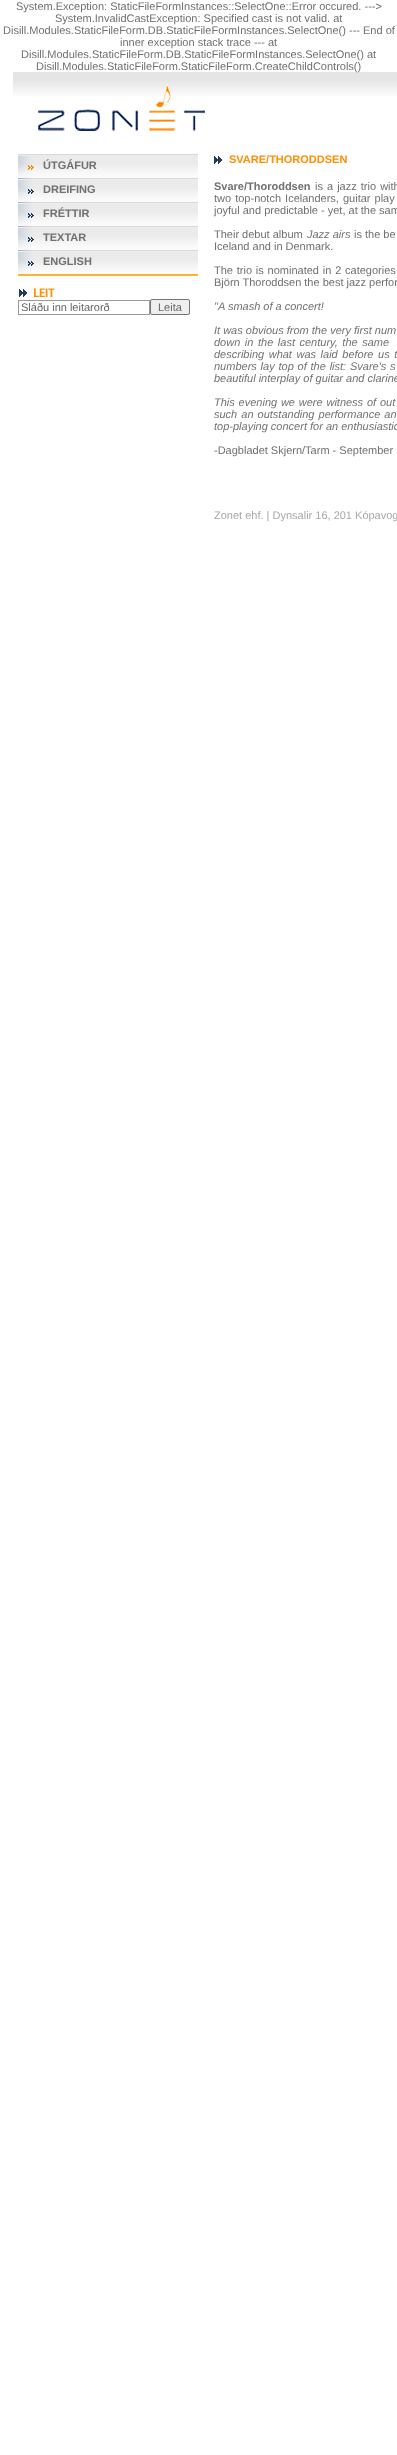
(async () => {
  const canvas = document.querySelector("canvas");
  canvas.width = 397;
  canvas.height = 2455;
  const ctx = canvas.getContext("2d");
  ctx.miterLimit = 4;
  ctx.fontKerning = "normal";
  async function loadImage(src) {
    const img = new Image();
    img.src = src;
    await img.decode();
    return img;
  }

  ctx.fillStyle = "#ffffff";
  ctx.fillRect(0, 0, 397, 2455);
  ctx.drawImage(await loadImage("img/1.png"), 13, 72, 384, 24);
  ctx.drawImage(await loadImage("img/2.png"), 35, 84, 170, 50);
  ctx.fillStyle = "#ffb430";
  ctx.fillRect(18, 274, 180, 2);
  ctx.drawImage(await loadImage("img/3.png"), 18, 154, 180, 24);
  ctx.drawImage(await loadImage("img/4.png"), 18, 178, 180, 24);
  ctx.drawImage(await loadImage("img/4.png"), 18, 202, 180, 24);
  ctx.drawImage(await loadImage("img/4.png"), 18, 226, 180, 24);
  ctx.drawImage(await loadImage("img/4.png"), 18, 250, 180, 24);
  ctx.drawImage(await loadImage("img/5.png"), 19, 286, 38, 13);
  ctx.strokeStyle = "#999999";
  ctx.strokeRect(18.5, 300.5, 131, 14);
  ctx.fillStyle = "#efefef";
  ctx.beginPath();
  ctx.roundRect(150.5, 299.5, 39, 15, 1.5);
  ctx.fill();
  ctx.strokeStyle = "#767676";
  ctx.stroke();
  ctx.drawImage(await loadImage("img/6.png"), 214, 156, 8, 8);
  ctx.font = "11px Liberation Sans";
  ctx.fillStyle = "#707070";
  for (const [text, x, y] of [
    ["System.Exception: StaticFileFormInstances::SelectOne::Error occured. --->", 16, 10],
    ["System.InvalidCastException: Specified cast is not valid. at", 55, 22],
    ["Disill.Modules.StaticFileForm.DB.StaticFileFormInstances.SelectOne() --- End of", 3, 34],
    ["inner exception stack trace --- at", 120, 46],
    ["Disill.Modules.StaticFileForm.DB.StaticFileFormInstances.SelectOne() at", 21, 58],
    ["Disill.Modules.StaticFileForm.StaticFileForm.CreateChildControls()", 36, 70],
  ]) {
    ctx.fillText(text, x, y);
  }
  ctx.font = "bold 11px Liberation Sans";
  for (const [text, x, y] of [
    ["ÚTGÁFUR", 43, 169],
    ["DREIFING", 43, 193],
    ["FRÉTTIR", 43, 217],
    ["TEXTAR", 43, 241],
    ["ENGLISH", 43, 265],
  ]) {
    ctx.fillText(text, x, y);
  }
  ctx.font = "11px Liberation Sans";
  ctx.fillStyle = "#666666";
  ctx.fillText("Sláðu inn leitarorð", 21, 311);
  ctx.fillText("Leita", 158, 311);
  ctx.font = "bold 11px Liberation Sans";
  ctx.fillStyle = "#ff8e05";
  ctx.fillText("SVARE/THORODDSEN", 229, 163);
  ctx.fillStyle = "#707070";
  ctx.fillText("Svare/Thoroddsen", 214, 190);
  ctx.wordSpacing = "1px";
  ctx.font = "11px Liberation Sans";
  ctx.fillText("is a jazz trio with", 315, 190);
  ctx.fillText("two top-notch Icelanders, guitar play", 214, 202);
  ctx.wordSpacing = "0px";
  ctx.fillText("joyful and predictable - yet, at the sam", 214, 214);
  ctx.fillText("Their debut album", 214, 238);
  ctx.font = "italic 11px Liberation Sans";
  ctx.fillText("Jazz airs", 307, 238);
  ctx.font = "11px Liberation Sans";
  ctx.fillText("is the be", 354, 238);
  ctx.fillText("Iceland and in Denmark.", 214, 250);
  ctx.wordSpacing = "0.75px";
  ctx.fillText("The trio is nominated in 2 categories", 214, 274);
  ctx.wordSpacing = "0px";
  ctx.fillText("Björn Thoroddsen the best jazz perfor", 214, 286);
  ctx.font = "italic 11px Liberation Sans";
  ctx.fillText("\"A smash of a concert!", 214, 310);
  ctx.fillText("It was obvious from the very first num", 214, 334);
  ctx.wordSpacing = "1.5px";
  ctx.fillText("down in the last century, the same", 214, 346);
  ctx.fillText("describing what was laid before us t", 214, 358);
  ctx.wordSpacing = "0.75px";
  ctx.fillText("numbers lay top of the list: Svare's s", 214, 370);
  ctx.wordSpacing = "0px";
  ctx.fillText("beautiful interplay of guitar and clarine", 214, 382);
  ctx.wordSpacing = "0.75px";
  ctx.fillText("This evening we were witness of out", 214, 406);
  ctx.wordSpacing = "1px";
  ctx.fillText("such an outstanding performance an", 214, 418);
  ctx.wordSpacing = "0px";
  ctx.fillText("top-playing concert for an enthusiastic", 214, 430);
  ctx.font = "11px Liberation Sans";
  ctx.fillText("-Dagbladet Skjern/Tarm - September", 214, 454);
  ctx.fillStyle = "#a8a8a8";
  ctx.fillText("Zonet ehf. | Dynsalir 16, 201 Kópavog", 214, 519);
})();
